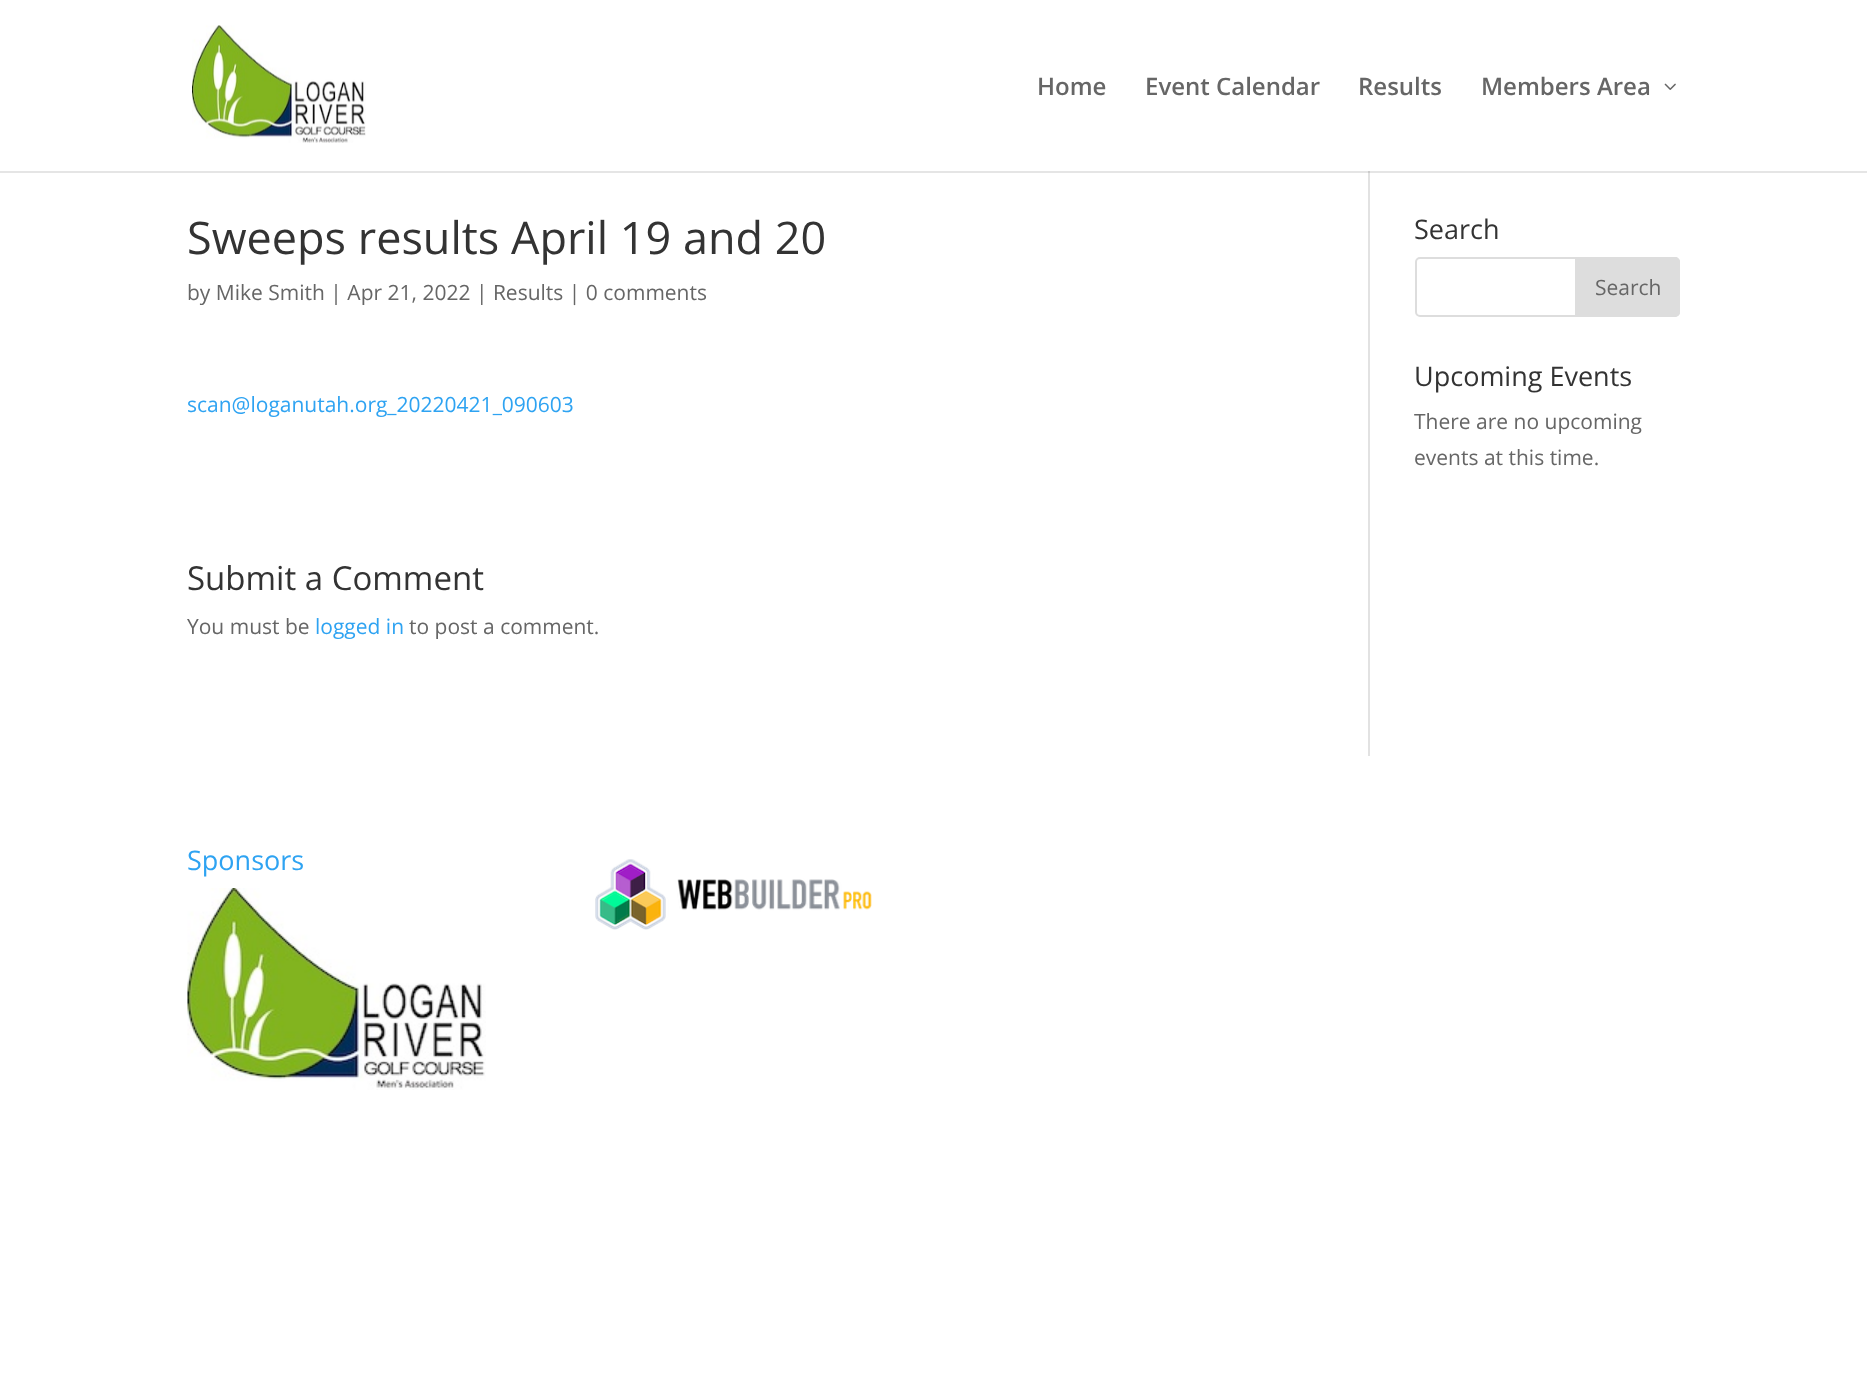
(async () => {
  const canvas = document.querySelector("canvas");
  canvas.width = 1867;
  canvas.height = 1400;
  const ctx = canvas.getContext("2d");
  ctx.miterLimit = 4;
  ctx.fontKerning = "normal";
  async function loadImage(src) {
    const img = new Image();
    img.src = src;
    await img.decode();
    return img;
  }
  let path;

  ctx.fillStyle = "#ffffff";
  ctx.fillRect(0, 0, 1867, 1400);
  ctx.fillStyle = "#e2e2e2";
  ctx.fillRect(1368, 171, 2, 585);
  ctx.fillStyle = "rgba(0, 0, 0, 0.1)";
  path = new Path2D("M0 171V173H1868V2V171Z");
  ctx.fill(path);
  ctx.drawImage(await loadImage("img/1.png"), 192, 25, 174, 118);
  ctx.drawImage(await loadImage("img/2.png"), 1664, 83, 12, 7);
  ctx.beginPath();
  ctx.roundRect(1416, 258, 263, 58, 4);
  ctx.strokeStyle = "#dddddd";
  ctx.lineWidth = 2;
  ctx.stroke();
  ctx.fillStyle = "#dddddd";
  ctx.beginPath();
  ctx.roundRect(1576, 258, 103, 58, [0, 4, 4, 0]);
  ctx.fill();
  ctx.stroke();
  ctx.drawImage(await loadImage("img/3.png"), 187, 888, 299, 202);
  ctx.drawImage(await loadImage("img/4.png"), 595, 859, 277, 71);
  ctx.font = "600 24px Open Sans";
  ctx.fillStyle = "#666666";
  for (const [text, x, y] of [
    ["Home", 1037, 95],
    ["Event Calendar", 1145, 95],
    ["Results", 1358, 95],
    ["Members Area", 1481, 95],
  ]) {
    ctx.fillText(text, x, y);
  }
  ctx.font = "45px Open Sans";
  ctx.fillStyle = "#333333";
  ctx.fillText("Sweeps results April 19 and 20", 187, 254);
  ctx.font = "21px Open Sans";
  ctx.fillStyle = "#666666";
  ctx.fillText("by Mike Smith | Apr 21, 2022 | Results | 0 comments", 187, 300);
  ctx.fillStyle = "#2ea3f2";
  ctx.fillText("scan@loganutah.org_20220421_090603", 187, 412);
  ctx.font = "33px Open Sans";
  ctx.fillStyle = "#333333";
  ctx.fillText("Submit a Comment", 187, 590);
  ctx.font = "21px Open Sans";
  ctx.fillStyle = "#666666";
  ctx.fillText("You must be", 187, 634);
  ctx.fillStyle = "#2ea3f2";
  ctx.fillText("logged in", 315, 634);
  ctx.fillStyle = "#666666";
  ctx.fillText("to post a comment.", 409, 634);
  ctx.font = "27px Open Sans";
  ctx.fillStyle = "#333333";
  ctx.fillText("Search", 1414, 239);
  ctx.font = "21px Open Sans";
  ctx.fillStyle = "#666666";
  ctx.fillText("Search", 1595, 295);
  ctx.font = "27px Open Sans";
  ctx.fillStyle = "#333333";
  ctx.fillText("Upcoming Events", 1414, 386);
  ctx.font = "21px Open Sans";
  ctx.fillStyle = "#666666";
  ctx.fillText("There are no upcoming", 1414, 429);
  ctx.fillText("events at this time.", 1414, 465);
  ctx.font = "27px Open Sans";
  ctx.fillStyle = "#2ea3f2";
  ctx.fillText("Sponsors", 187, 870);
})();
